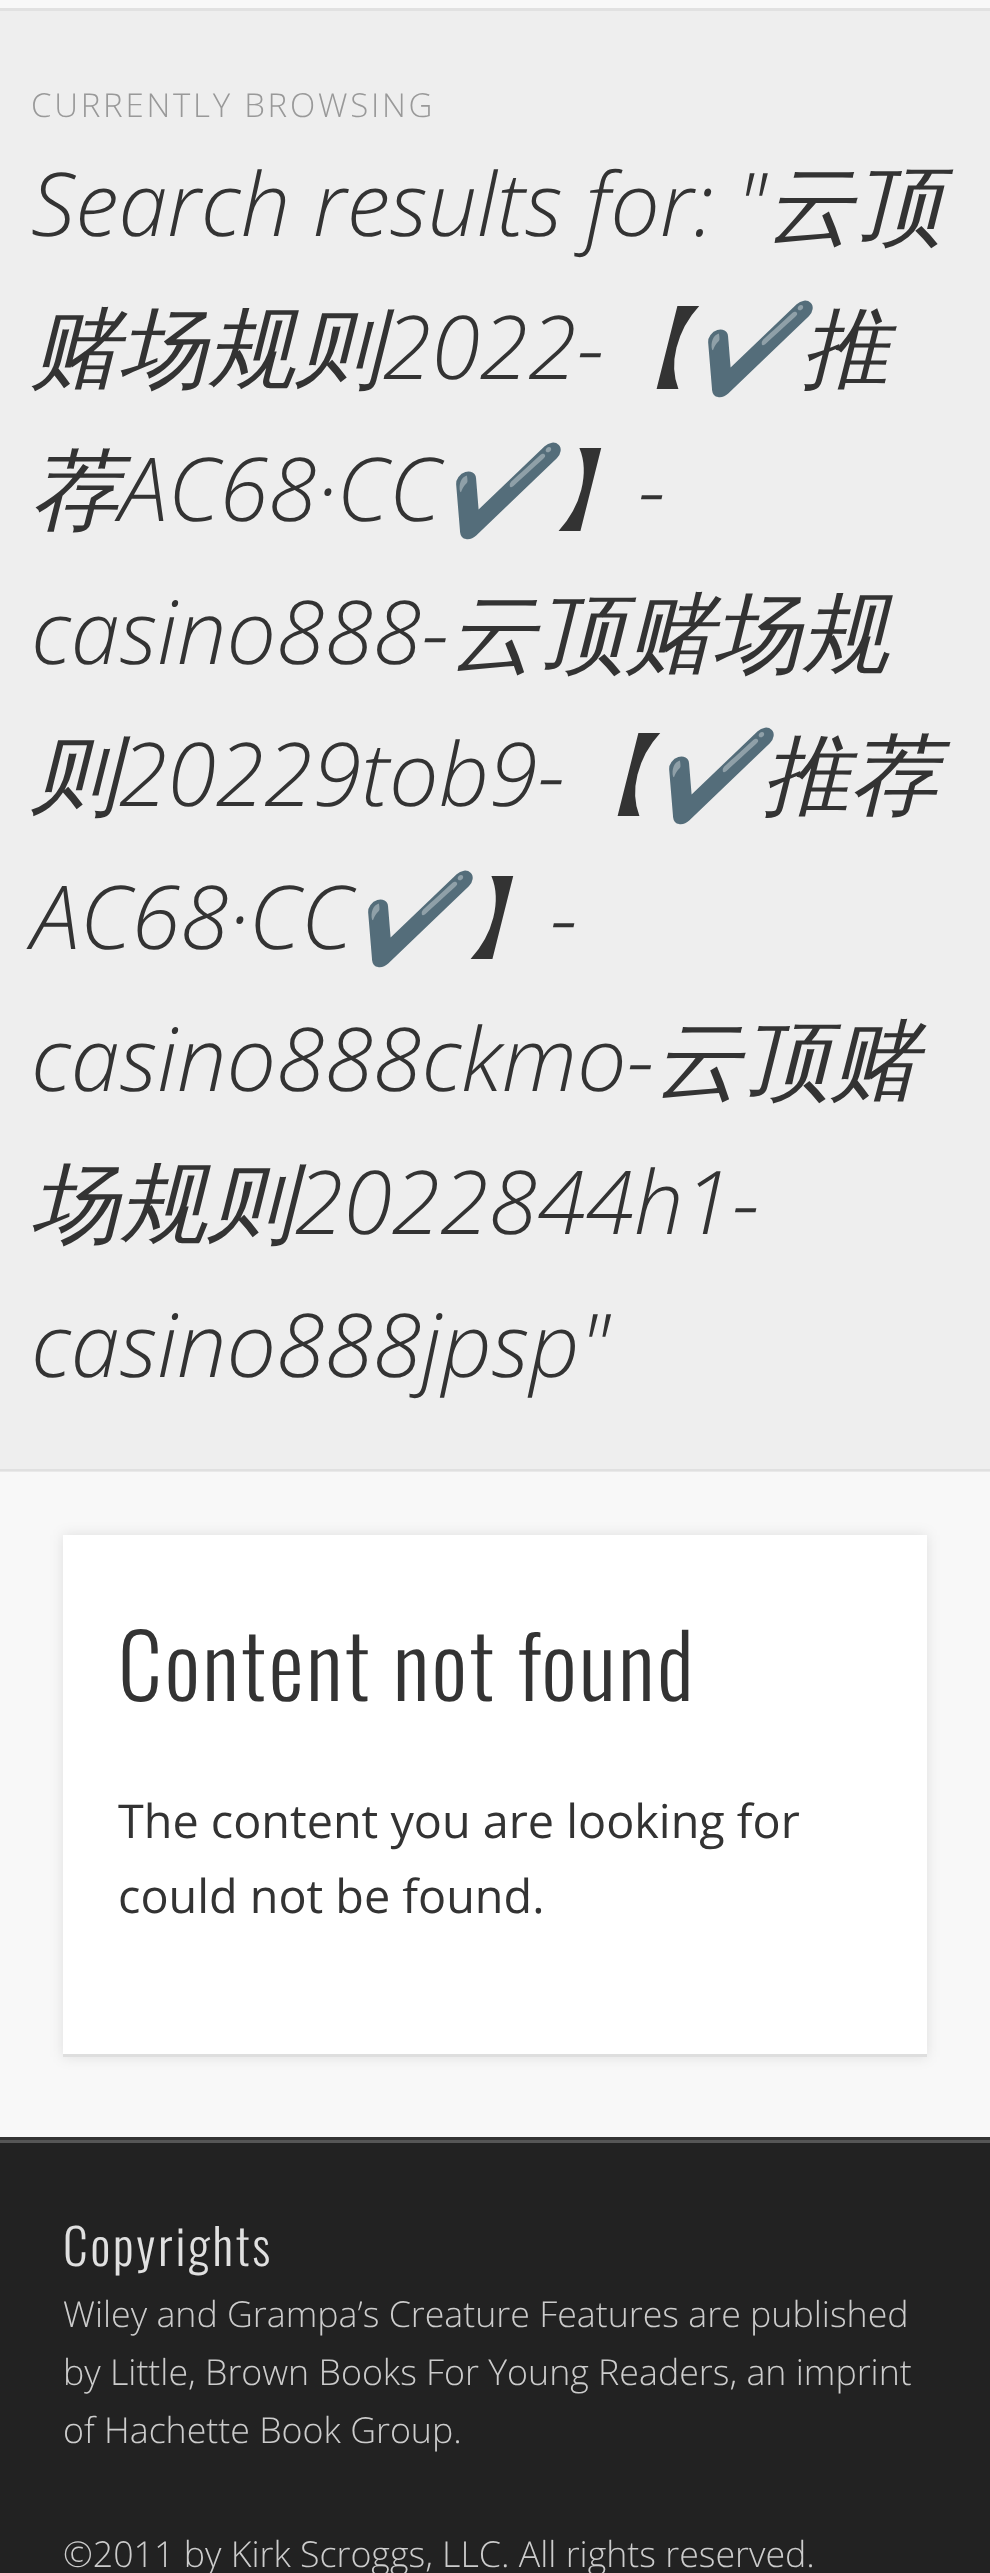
(async () => {
  const canvas = document.querySelector("canvas");
  canvas.width = 990;
  canvas.height = 2573;
  const ctx = canvas.getContext("2d");
  ctx.miterLimit = 4;
  ctx.fontKerning = "normal";

  ctx.fillStyle = "#f8f8f8";
  ctx.fillRect(0, 0, 990, 2573);
  for (const [x, y, w, h, color] of [
    [0, 11, 990, 1460, "#eeeeee"],
    [0, 8, 990, 3, "#e1e1e1"],
    [0, 1469, 990, 3, "rgba(0, 0, 0, 0.06)"],
  ]) {
    ctx.fillStyle = color;
    ctx.fillRect(x, y, w, h);
  }
  ctx.fillStyle = "rgba(0, 0, 0, 0.1)";
  ctx.filter = "blur(7px)";
  ctx.beginPath();
  ctx.rect(63, 1535, 864, 522);
  ctx.fill();
  ctx.filter = "none";
  for (const [x, y, w, h, color] of [
    [63, 1535, 864, 519, "#ffffff"],
    [63, 2054, 864, 3, "#dedede"],
    [0, 2137, 990, 3, "#343434"],
    [0, 2143, 990, 430, "#222222"],
    [0, 2140, 990, 3, "#565656"],
  ]) {
    ctx.fillStyle = color;
    ctx.fillRect(x, y, w, h);
  }
  ctx.letterSpacing = "2.75px";
  ctx.font = "300 33px Open Sans";
  ctx.fillStyle = "#999999";
  ctx.fillText("CURRENTLY BROWSING", 31, 117);
  ctx.letterSpacing = "0px";
  ctx.font = "italic 300 88px Open Sans";
  ctx.fillStyle = "#333333";
  ctx.fillText("Search results for: \"", 31, 236);
  ctx.font = "italic 500 88px WenQuanYi Zen Hei";
  ctx.fillText("云顶", 766, 236);
  ctx.fillText("赌场规则", 31, 379);
  ctx.font = "italic 300 88px Open Sans";
  ctx.fillText("2022-", 383, 379);
  ctx.font = "italic 500 88px WenQuanYi Zen Hei";
  ctx.fillText("【", 604, 379);
  ctx.font = "italic 88px Noto Color Emoji";
  ctx.fillText("✔️", 692, 379);
  ctx.font = "italic 500 88px WenQuanYi Zen Hei";
  ctx.fillText("推", 801, 379);
  ctx.fillText("荐", 31, 521);
  ctx.font = "italic 300 88px Open Sans";
  ctx.fillText("AC68·CC", 119, 521);
  ctx.font = "italic 88px Noto Color Emoji";
  ctx.fillText("✔️", 440, 521);
  ctx.font = "italic 500 88px WenQuanYi Zen Hei";
  ctx.fillText("】", 550, 521);
  ctx.font = "italic 300 88px Open Sans";
  ctx.fillText("-", 638, 521);
  ctx.fillText("casino888-", 31, 664);
  ctx.font = "italic 500 88px WenQuanYi Zen Hei";
  ctx.fillText("云顶赌场规", 449, 664);
  ctx.fillText("则", 31, 806);
  ctx.font = "italic 300 88px Open Sans";
  ctx.fillText("20229tob9-", 119, 806);
  ctx.font = "italic 500 88px WenQuanYi Zen Hei";
  ctx.fillText("【", 565, 806);
  ctx.font = "italic 88px Noto Color Emoji";
  ctx.fillText("✔️", 653, 806);
  ctx.font = "italic 500 88px WenQuanYi Zen Hei";
  ctx.fillText("推荐", 762, 806);
  ctx.font = "italic 300 88px Open Sans";
  ctx.fillText("AC68·CC", 31, 949);
  ctx.font = "italic 88px Noto Color Emoji";
  ctx.fillText("✔️", 352, 949);
  ctx.font = "italic 500 88px WenQuanYi Zen Hei";
  ctx.fillText("】", 462, 949);
  ctx.font = "italic 300 88px Open Sans";
  ctx.fillText("-", 550, 949);
  ctx.fillText("casino888ckmo-", 31, 1091);
  ctx.font = "italic 500 88px WenQuanYi Zen Hei";
  ctx.fillText("云顶赌", 654, 1091);
  ctx.fillText("场规则", 31, 1234);
  ctx.font = "italic 300 88px Open Sans";
  ctx.fillText("2022844h1-", 295, 1234);
  ctx.fillText("casino888jpsp\"", 31, 1377);
  ctx.letterSpacing = "2.75px";
  ctx.font = "300 88px Oswald";
  ctx.fillText("Content not found", 118, 1701);
  ctx.letterSpacing = "0px";
  ctx.font = "46.75px Open Sans";
  ctx.fillText("The content you are looking for", 118, 1838);
  ctx.fillText("could not be found.", 118, 1913);
  ctx.letterSpacing = "2.75px";
  ctx.font = "300 49.5px Oswald";
  ctx.fillStyle = "#e0e0e0";
  ctx.fillText("Copyrights", 63, 2266);
  ctx.letterSpacing = "0px";
  ctx.font = "300 35.75px Open Sans";
  ctx.fillStyle = "#cccccc";
  for (const [text, x, y] of [
    ["Wiley and Grampa’s Creature Features are published", 63, 2327],
    ["by Little, Brown Books For Young Readers, an imprint", 63, 2385],
    ["of Hachette Book Group.", 63, 2443],
    ["©2011 by Kirk Scroggs, LLC. All rights reserved.", 63, 2567],
  ]) {
    ctx.fillText(text, x, y);
  }
})();
